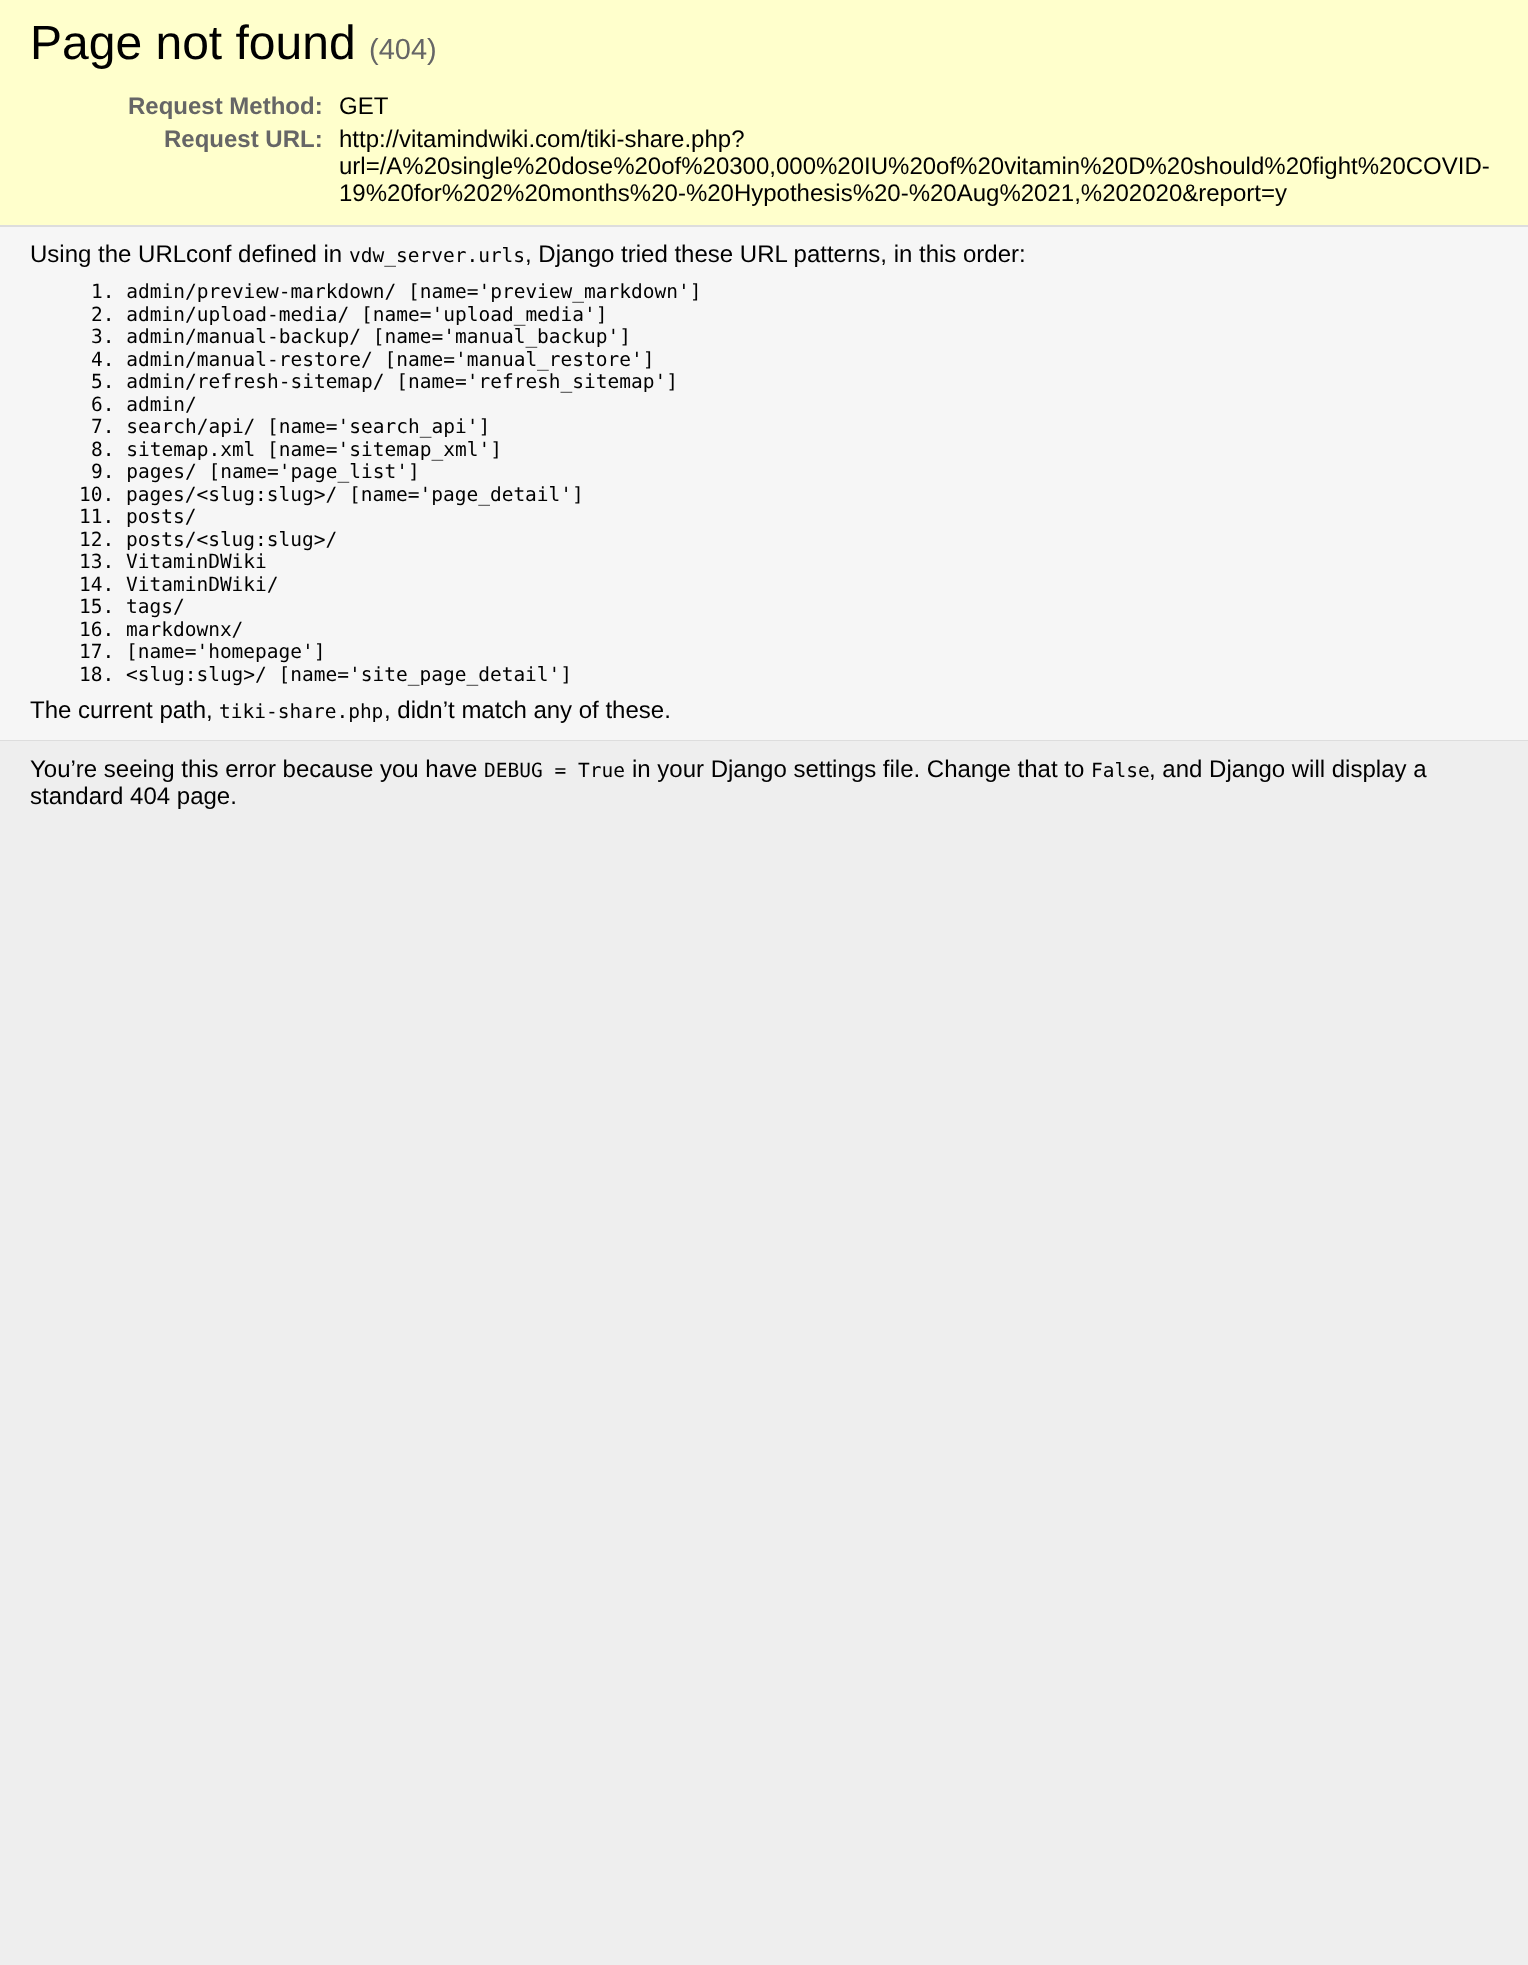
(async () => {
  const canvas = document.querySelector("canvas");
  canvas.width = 1528;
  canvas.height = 1965;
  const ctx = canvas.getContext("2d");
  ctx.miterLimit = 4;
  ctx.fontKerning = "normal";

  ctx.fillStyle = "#eeeeee";
  ctx.fillRect(0, 0, 1528, 1965);
  for (const [x, y, w, h, color] of [
    [0, 0, 1528, 225, "#ffffcc"],
    [0, 225, 1528, 2, "#dddddd"],
    [0, 227, 1528, 513, "#f6f6f6"],
    [0, 740, 1528, 1, "#dddddd"],
  ]) {
    ctx.fillStyle = color;
    ctx.fillRect(x, y, w, h);
  }
  ctx.font = "48px Liberation Sans";
  ctx.fillStyle = "#000000";
  ctx.fillText("Page not found", 30, 59);
  ctx.font = "29px Liberation Sans";
  ctx.fillStyle = "#666666";
  ctx.fillText("(404)", 369, 59);
  ctx.font = "bold 24px Liberation Sans";
  ctx.fillText("Request Method:", 128, 114);
  ctx.font = "24px Liberation Sans";
  ctx.fillStyle = "#000000";
  ctx.fillText("GET", 339, 114);
  ctx.font = "bold 24px Liberation Sans";
  ctx.fillStyle = "#666666";
  ctx.fillText("Request URL:", 164, 147);
  ctx.font = "24px Liberation Sans";
  ctx.fillStyle = "#000000";
  for (const [text, x, y] of [
    ["http://vitamindwiki.com/tiki-share.php?", 339, 147],
    ["url=/A%20single%20dose%20of%20300,000%20IU%20of%20vitamin%20D%20should%20fight%20COVID-", 339, 174],
    ["19%20for%202%20months%20-%20Hypothesis%20-%20Aug%2021,%202020&report=y", 339, 201],
    ["Using the URLconf defined in", 30, 262],
  ]) {
    ctx.fillText(text, x, y);
  }
  ctx.font = "19.5px DejaVu Sans Mono";
  ctx.fillText("vdw_server.urls", 349, 262);
  ctx.font = "24px Liberation Sans";
  ctx.fillText(", Django tried these URL patterns, in this order:", 525, 262);
  ctx.font = "19.5px DejaVu Sans Mono";
  for (const [text, x, y] of [
    ["1. admin/preview-markdown/ [name='preview_markdown']", 91, 298],
    ["2. admin/upload-media/ [name='upload_media']", 91, 321],
    ["3. admin/manual-backup/ [name='manual_backup']", 91, 343],
    ["4. admin/manual-restore/ [name='manual_restore']", 91, 366],
    ["5. admin/refresh-sitemap/ [name='refresh_sitemap']", 91, 388],
    ["6. admin/", 91, 411],
    ["7. search/api/ [name='search_api']", 91, 433],
    ["8. sitemap.xml [name='sitemap_xml']", 91, 456],
    ["9. pages/ [name='page_list']", 91, 478],
    ["10. pages/<slug:slug>/ [name='page_detail']", 79, 501],
    ["11. posts/", 79, 523],
    ["12. posts/<slug:slug>/", 79, 546],
    ["13. VitaminDWiki", 79, 568],
    ["14. VitaminDWiki/", 79, 591],
    ["15. tags/", 79, 613],
    ["16. markdownx/", 79, 636],
    ["17. [name='homepage']", 79, 658],
    ["18. <slug:slug>/ [name='site_page_detail']", 79, 681],
  ]) {
    ctx.fillText(text, x, y);
  }
  ctx.font = "24px Liberation Sans";
  ctx.fillText("The current path,", 30, 718);
  ctx.font = "19.5px DejaVu Sans Mono";
  ctx.fillText("tiki-share.php", 219, 718);
  ctx.font = "24px Liberation Sans";
  ctx.fillText(", didn’t match any of these.", 384, 718);
  ctx.fillText("You’re seeing this error because you have", 30, 777);
  ctx.font = "19.5px DejaVu Sans Mono";
  ctx.fillText("DEBUG = True", 484, 777);
  ctx.font = "24px Liberation Sans";
  ctx.fillText("in your Django settings file. Change that to", 632, 777);
  ctx.font = "19.5px DejaVu Sans Mono";
  ctx.fillText("False", 1091, 777);
  ctx.font = "24px Liberation Sans";
  ctx.fillText(", and Django will display a", 1149, 777);
  ctx.fillText("standard 404 page.", 30, 804);
})();
